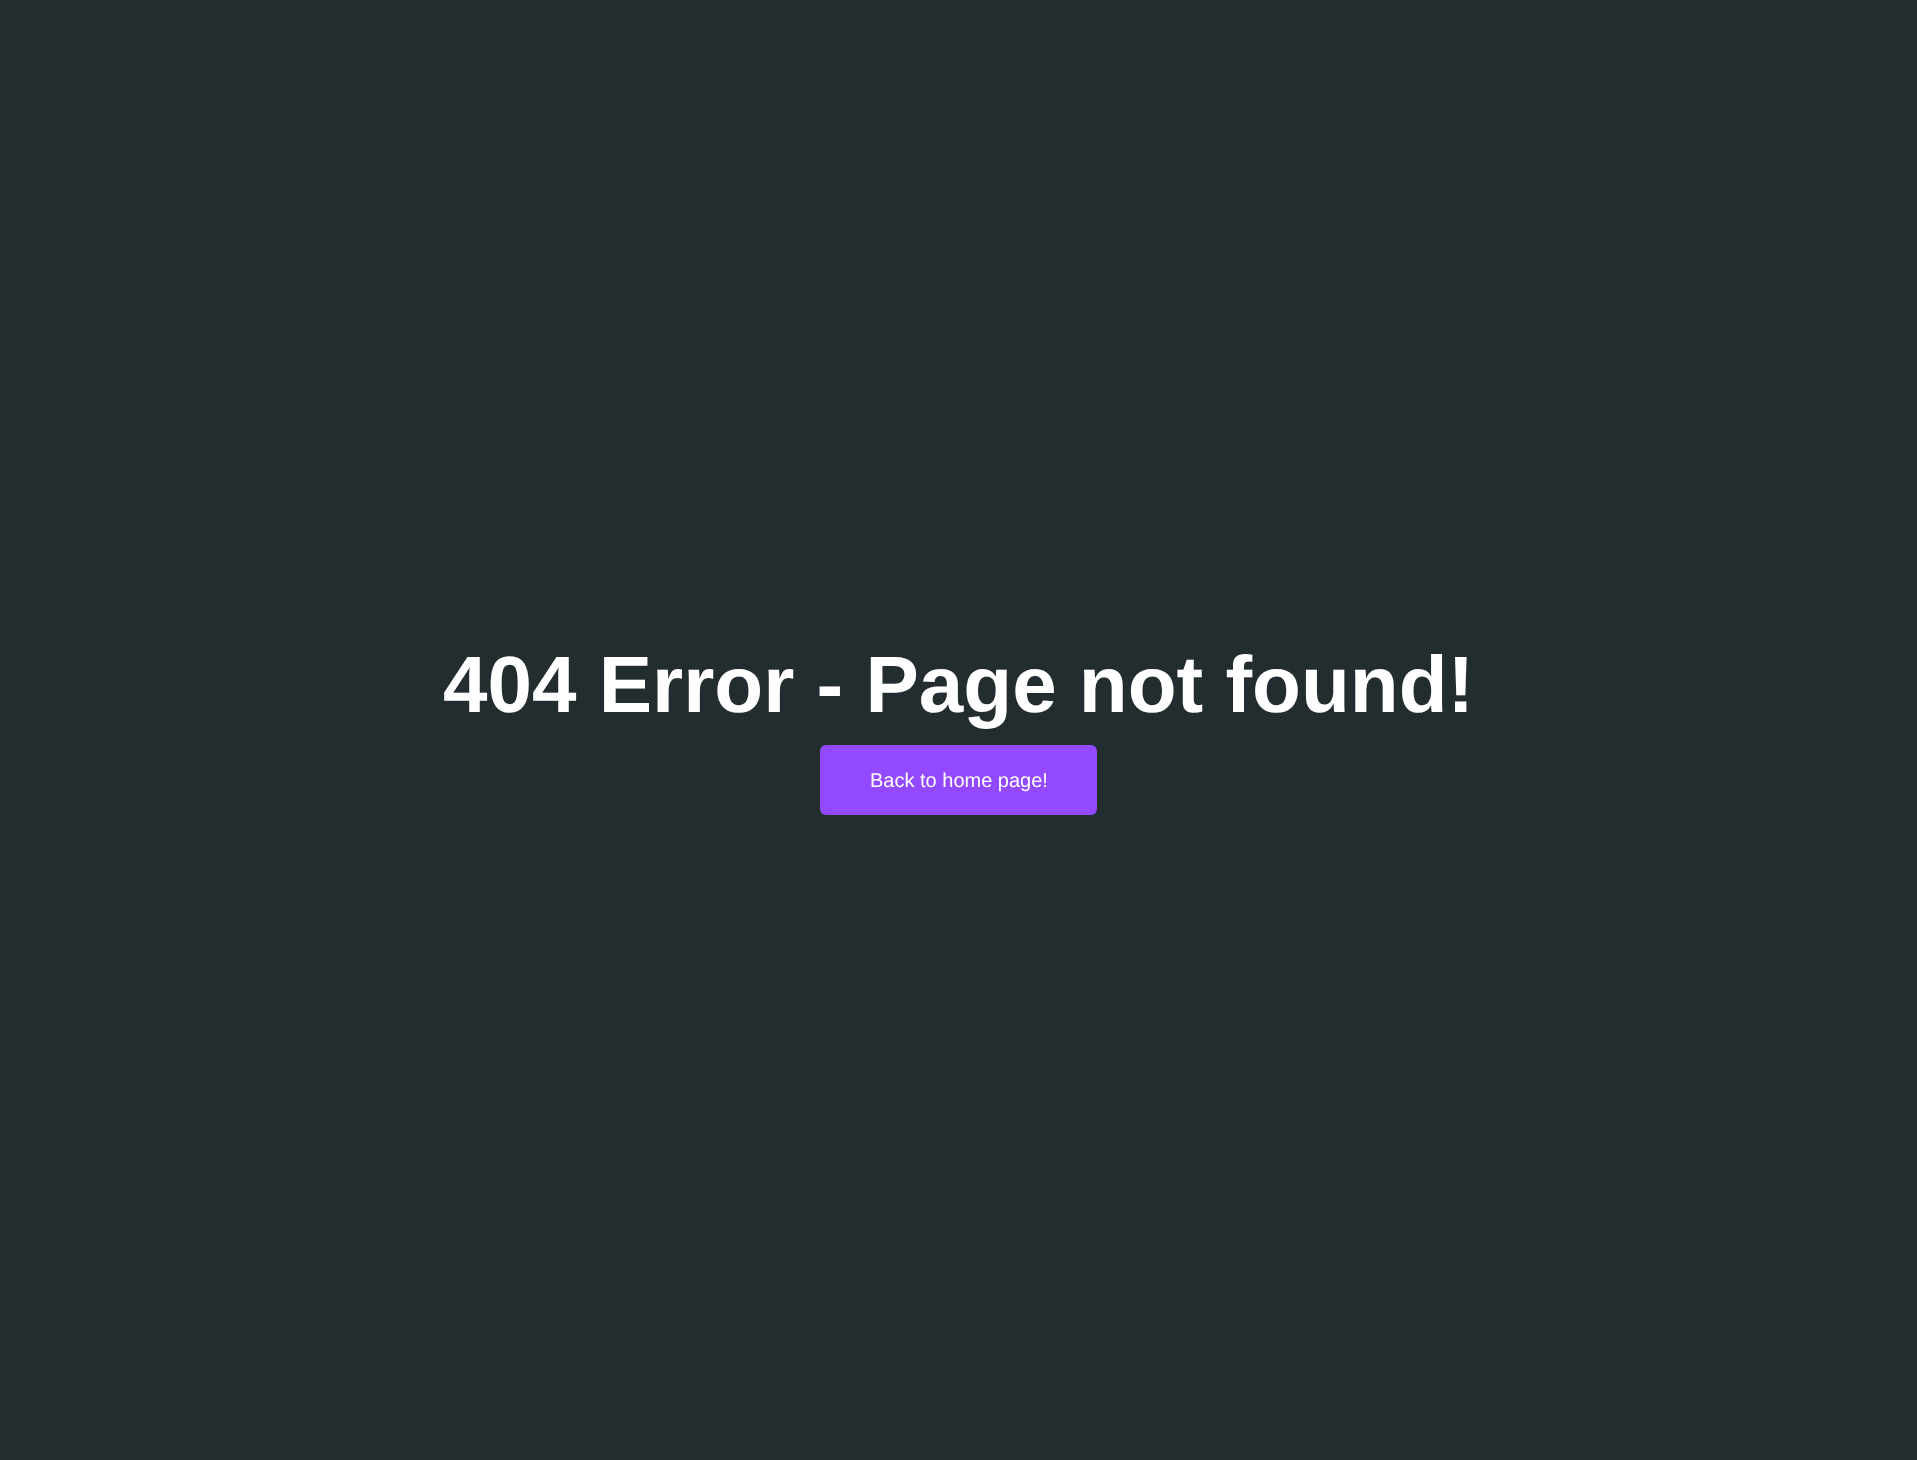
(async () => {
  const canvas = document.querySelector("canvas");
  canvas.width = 1917;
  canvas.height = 1460;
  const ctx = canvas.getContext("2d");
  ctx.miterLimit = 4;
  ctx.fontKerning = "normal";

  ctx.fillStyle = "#232d30";
  ctx.fillRect(0, 0, 1917, 1460);
  ctx.fillStyle = "#9249ff";
  ctx.beginPath();
  ctx.roundRect(820, 745, 277, 70, 6);
  ctx.fill();
  ctx.font = "bold 80px Liberation Sans";
  ctx.fillStyle = "#ffffff";
  ctx.fillText("404 Error - Page not found!", 443, 712);
  ctx.font = "20px Liberation Sans";
  ctx.fillText("Back to home page!", 870, 787);
})();
